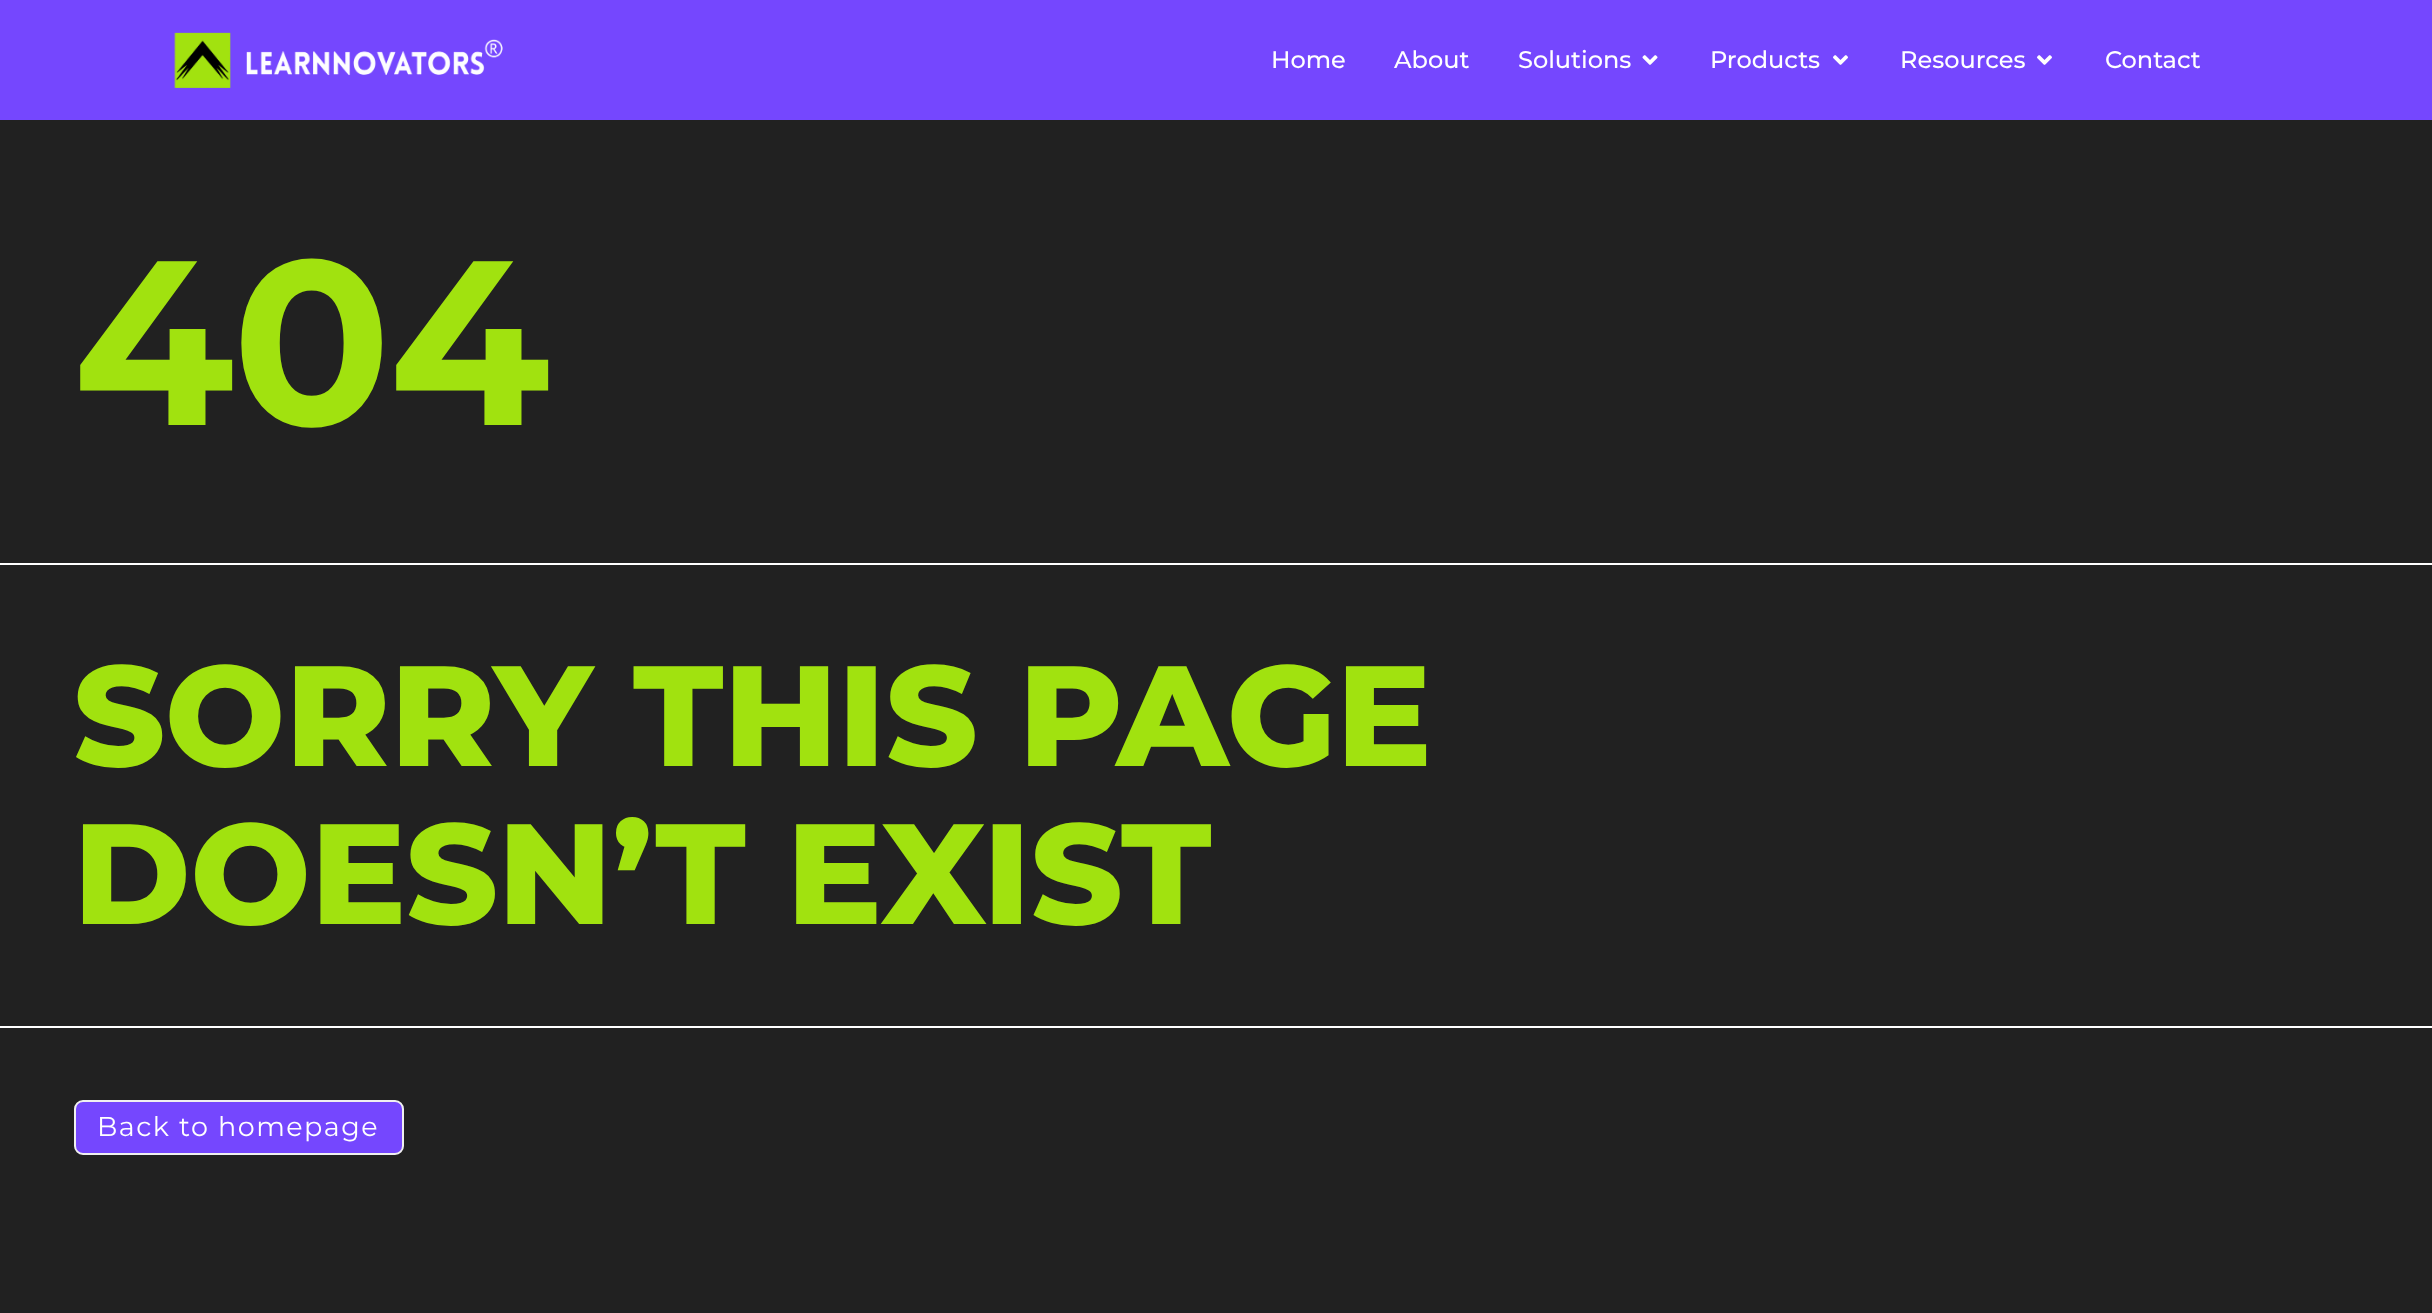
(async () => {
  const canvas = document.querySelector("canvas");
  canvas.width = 2432;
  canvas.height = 1313;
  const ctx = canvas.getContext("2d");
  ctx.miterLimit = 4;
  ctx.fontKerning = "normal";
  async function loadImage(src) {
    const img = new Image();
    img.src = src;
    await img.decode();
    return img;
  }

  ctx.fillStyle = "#212121";
  ctx.fillRect(0, 0, 2432, 1313);
  ctx.fillStyle = "#7547fe";
  ctx.fillRect(0, 0, 2432, 120);
  ctx.drawImage(await loadImage("img/1.png"), 174, 32, 329, 57);
  ctx.drawImage(await loadImage("img/2.png"), 1642, 55, 16, 10);
  ctx.drawImage(await loadImage("img/3.png"), 1833, 55, 15, 10);
  ctx.drawImage(await loadImage("img/3.png"), 2037, 55, 15, 10);
  ctx.fillStyle = "#ffffff";
  ctx.fillRect(0, 563, 2432, 2);
  ctx.fillRect(0, 1026, 2432, 2);
  ctx.fillStyle = "#7547fe";
  ctx.beginPath();
  ctx.roundRect(75, 1101, 328, 53, 8);
  ctx.fill();
  ctx.strokeStyle = "#f0f0f0";
  ctx.lineWidth = 2;
  ctx.stroke();
  ctx.font = "500 24px Montserrat";
  ctx.fillStyle = "#ffffff";
  for (const [text, x, y] of [
    ["Home", 1271, 68],
    ["About", 1394, 68],
    ["Solutions", 1518, 68],
    ["Products", 1710, 68],
    ["Resources", 1900, 68],
    ["Contact", 2105, 68],
  ]) {
    ctx.fillText(text, x, y);
  }
  ctx.letterSpacing = "-2px";
  ctx.font = "bold 234px Montserrat";
  ctx.fillStyle = "#a1e20f";
  ctx.fillText("404", 73, 425);
  ctx.letterSpacing = "-0.4px";
  ctx.font = "800 142.5px Montserrat";
  ctx.fillText("SORRY THIS PAGE", 73, 766);
  ctx.fillText("DOESN’T EXIST", 73, 924);
  ctx.letterSpacing = "1.5px";
  ctx.font = "27px Montserrat";
  ctx.fillStyle = "#ffffff";
  ctx.fillText("Back to homepage", 97, 1136);
})();
